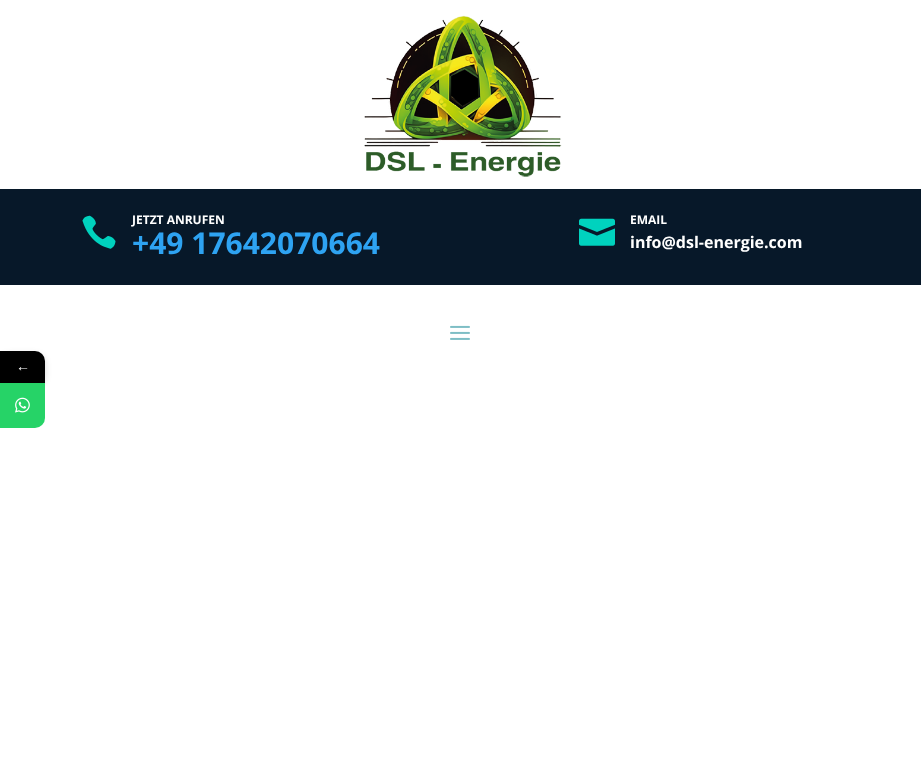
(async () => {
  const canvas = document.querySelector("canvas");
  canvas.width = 921;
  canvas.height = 777;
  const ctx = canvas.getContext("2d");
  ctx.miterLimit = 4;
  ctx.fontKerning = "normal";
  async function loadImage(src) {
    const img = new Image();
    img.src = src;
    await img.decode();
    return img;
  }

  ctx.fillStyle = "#ffffff";
  ctx.fillRect(0, 0, 921, 777);
  ctx.drawImage(await loadImage("img/1.png"), 364, 15, 198, 162);
  ctx.fillStyle = "#071829";
  ctx.fillRect(0, 189, 921, 96);
  ctx.drawImage(await loadImage("img/2.png"), 82, 215, 34, 34);
  ctx.drawImage(await loadImage("img/3.png"), 579, 218, 36, 28);
  ctx.drawImage(await loadImage("img/4.png"), 450, 325, 20, 15);
  ctx.fillStyle = "rgba(0, 0, 0, 0.16)";
  ctx.filter = "blur(3px)";
  ctx.beginPath();
  ctx.roundRect(0, 354, 45, 32, 10);
  ctx.fill();
  ctx.filter = "none";
  ctx.fillStyle = "#000000";
  ctx.beginPath();
  ctx.roundRect(0, 351, 45, 32, [0, 10, 0, 0]);
  ctx.fill();
  ctx.fillStyle = "#26d367";
  ctx.beginPath();
  ctx.roundRect(0, 383, 45, 45, [0, 0, 10, 0]);
  ctx.fill();
  ctx.drawImage(await loadImage("img/5.png"), 15, 397, 15, 16);
  ctx.font = "bold 12px Open Sans";
  ctx.fillStyle = "#ffffff";
  ctx.fillText("JETZT ANRUFEN", 132, 224);
  ctx.font = "bold 30px Open Sans";
  ctx.fillStyle = "#2ea3f2";
  ctx.fillText("+49 17642070664", 132, 254);
  ctx.font = "bold 12px Open Sans";
  ctx.fillStyle = "#ffffff";
  ctx.fillText("EMAIL", 630, 224);
  ctx.font = "bold 16px Open Sans";
  ctx.fillText("info@dsl-energie.com", 630, 248);
  ctx.font = "14px Liberation Serif";
  ctx.fillText("←", 16, 371);
})();
